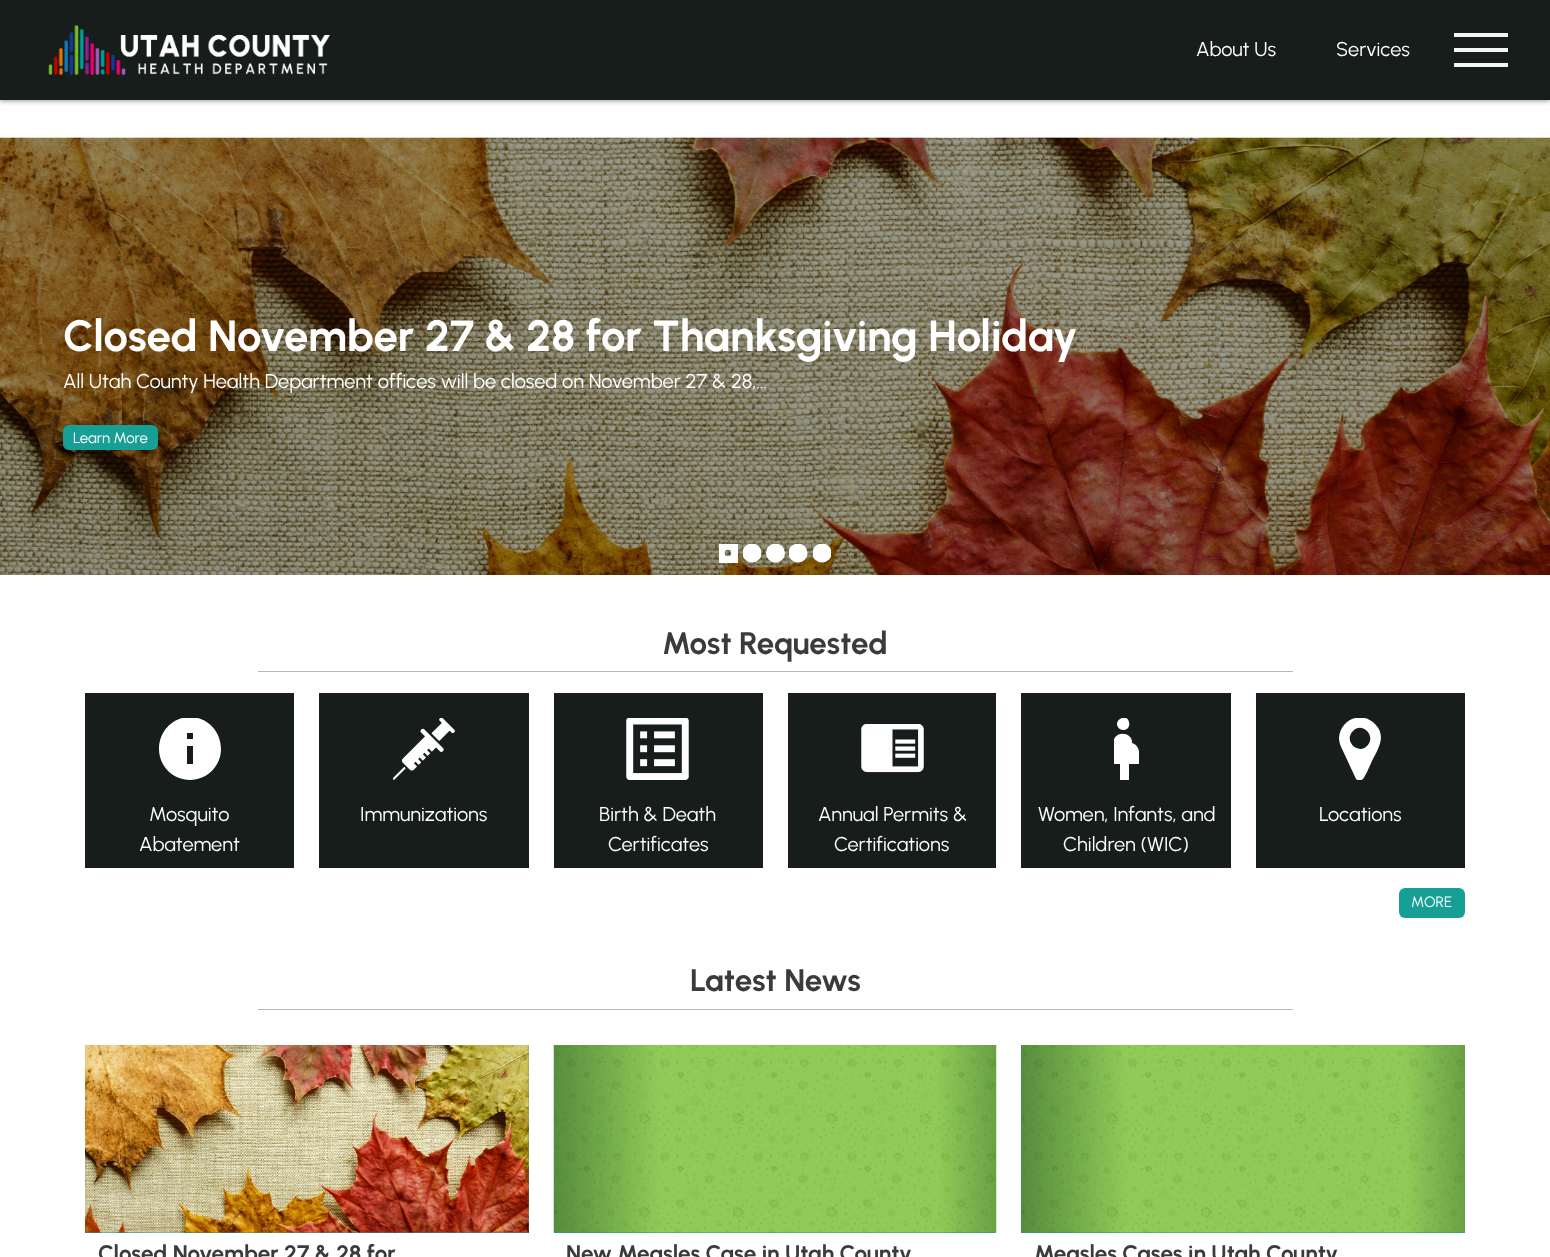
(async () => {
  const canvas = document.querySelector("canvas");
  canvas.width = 1550;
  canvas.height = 1257;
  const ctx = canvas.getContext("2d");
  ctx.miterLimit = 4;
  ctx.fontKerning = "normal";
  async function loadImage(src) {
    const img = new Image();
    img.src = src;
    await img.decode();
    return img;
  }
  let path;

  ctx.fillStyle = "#ffffff";
  ctx.fillRect(0, 0, 1550, 1257);
  ctx.fillStyle = "rgba(0, 0, 0, 0.4)";
  ctx.filter = "blur(2.5px)";
  ctx.beginPath();
  ctx.rect(0, 1, 1550, 100);
  ctx.fill();
  ctx.filter = "none";
  ctx.fillStyle = "#171d1a";
  ctx.fillRect(0, 0, 1550, 100);
  ctx.drawImage(await loadImage("img/1.png"), 48, 25, 282, 50);
  for (const [x, y, w, h, color] of [
    [1454, 33, 54, 4, "#f3f4f4"],
    [1454, 48, 54, 4, "#f3f4f4"],
    [1454, 63, 54, 4, "#f3f4f4"],
  ]) {
    ctx.fillStyle = color;
    ctx.fillRect(x, y, w, h);
  }
  ctx.drawImage(await loadImage("img/2.png"), 0, 137, 1550, 438);
  ctx.fillStyle = "#189f95";
  ctx.beginPath();
  ctx.roundRect(63, 425, 95, 25, 6);
  ctx.fill();
  ctx.save();
  ctx.beginPath();
  ctx.rect(719, 544, 19, 19);
  ctx.clip();
  ctx.beginPath();
  ctx.arc(728, 553, 9.5, 0, Math.PI * 2);
  ctx.strokeStyle = "#ffffff";
  ctx.lineWidth = 12.5;
  ctx.stroke();
  ctx.restore();
  ctx.save();
  ctx.beginPath();
  ctx.rect(743, 544, 18, 19);
  ctx.clip();
  ctx.fillStyle = "#ffffff";
  ctx.beginPath();
  ctx.arc(752, 553, 9.5, 0, Math.PI * 2);
  ctx.fill();
  ctx.restore();
  ctx.save();
  ctx.beginPath();
  ctx.rect(766, 544, 19, 19);
  ctx.clip();
  ctx.fillStyle = "#ffffff";
  ctx.beginPath();
  ctx.arc(775.5, 553, 9.5, 0, Math.PI * 2);
  ctx.fill();
  ctx.restore();
  ctx.save();
  ctx.beginPath();
  ctx.rect(789, 544, 19, 19);
  ctx.clip();
  ctx.fillStyle = "#ffffff";
  ctx.beginPath();
  ctx.arc(798, 553, 9.5, 0, Math.PI * 2);
  ctx.fill();
  ctx.restore();
  ctx.save();
  ctx.beginPath();
  ctx.rect(813, 544, 18, 19);
  ctx.clip();
  ctx.fillStyle = "#ffffff";
  ctx.beginPath();
  ctx.arc(822, 553, 9.5, 0, Math.PI * 2);
  ctx.fill();
  ctx.restore();
  ctx.fillStyle = "#b7b7b7";
  ctx.fillRect(258, 671, 1035, 1);
  ctx.fillStyle = "#171d1a";
  ctx.fillRect(85, 693, 209, 175);
  ctx.save();
  ctx.beginPath();
  ctx.rect(159, 718, 62, 62);
  ctx.clip();
  ctx.fillStyle = "#ffffff";
  path = new Path2D("M190 717C173 717 159 731 159 749C159 766 173 780 190 780C207 780 221 766 221 749C221 731 207 717 190 717ZM193 764H187V746H193ZM193 739H187V733H193Z");
  ctx.fill(path);
  ctx.restore();
  ctx.fillRect(319, 693, 210, 175);
  ctx.drawImage(await loadImage("img/3.png"), 393, 718, 62, 62);
  ctx.fillRect(554, 693, 209, 175);
  ctx.drawImage(await loadImage("img/4.png"), 626, 718, 63, 62);
  ctx.fillRect(788, 693, 208, 175);
  ctx.drawImage(await loadImage("img/5.png"), 861, 724, 63, 49);
  ctx.fillRect(1021, 693, 210, 175);
  ctx.save();
  ctx.beginPath();
  ctx.rect(1114, 718, 25, 62);
  ctx.clip();
  ctx.fillStyle = "#ffffff";
  path = new Path2D("M1117 724C1117 722 1118 720 1120 719C1129 712 1134 730 1123 730C1120 730 1117 727 1117 724ZM1139 752C1139 748 1136 744 1132 743C1133 733 1118 730 1114 739C1113 742 1114 746 1114 750V764H1120V780H1129V764H1139Z");
  ctx.fill(path);
  ctx.restore();
  ctx.fillRect(1256, 693, 209, 175);
  ctx.save();
  ctx.beginPath();
  ctx.rect(1329, 718, 62, 62);
  ctx.clip();
  ctx.fillStyle = "#ffffff";
  path = new Path2D("M1375 724C1361 710 1340 720 1339 738C1339 743 1341 747 1343 751L1356 779C1362 784 1365 776 1367 772L1372 761C1378 749 1387 736 1375 724ZM1367 746C1358 755 1343 741 1353 731C1362 721 1377 736 1367 746Z");
  ctx.fill(path);
  ctx.restore();
  ctx.fillStyle = "#189f95";
  ctx.beginPath();
  ctx.roundRect(1399, 888, 66, 30, 6);
  ctx.fill();
  ctx.fillStyle = "#b7b7b7";
  ctx.fillRect(258, 1009, 1035, 1);
  ctx.fillStyle = "#189f95";
  ctx.fillRect(85, 1045, 444, 188);
  ctx.drawImage(await loadImage("img/6.png"), 85, 1045, 444, 188);
  ctx.fillRect(554, 1232, 442, 1);
  ctx.drawImage(await loadImage("img/7.png"), 553, 1045, 444, 188);
  ctx.fillRect(1021, 1045, 444, 188);
  ctx.drawImage(await loadImage("img/8.png"), 1021, 1045, 444, 188);
  ctx.font = "20px Urbanist";
  ctx.fillStyle = "#ffffff";
  ctx.fillText("About Us", 1196, 56);
  ctx.fillText("Services", 1336, 56);
  ctx.font = "bold 43.75px Urbanist";
  ctx.fillText("Closed November 27 & 28 for Thanksgiving Holiday", 63, 351);
  ctx.font = "20px Urbanist";
  ctx.fillText("All Utah County Health Department offices will be closed on November 27 & 28,...", 63, 388);
  ctx.font = "15px Urbanist";
  ctx.fillText("Learn More", 73, 443);
  ctx.font = "bold 31.25px Urbanist";
  ctx.fillStyle = "#3b3b3d";
  ctx.fillText("Most Requested", 662, 654);
  ctx.font = "20px Urbanist";
  ctx.fillStyle = "#ffffff";
  for (const [text, x, y] of [
    ["Mosquito", 149, 821],
    ["Abatement", 139, 851],
    ["Immunizations", 360, 821],
    ["Birth & Death", 599, 821],
    ["Certificates", 608, 851],
    ["Annual Permits &", 818, 821],
    ["Certifications", 834, 851],
    ["Women, Infants, and", 1038, 821],
    ["Children (WIC)", 1063, 851],
    ["Locations", 1319, 821],
  ]) {
    ctx.fillText(text, x, y);
  }
  ctx.font = "15px Urbanist";
  ctx.fillText("MORE", 1411, 907);
  ctx.font = "bold 31.25px Urbanist";
  ctx.fillStyle = "#3b3b3d";
  ctx.fillText("Latest News", 690, 991);
  ctx.font = "bold 22.5px Urbanist";
  for (const [text, x, y] of [
    ["Closed November 27 & 28 for", 98, 1261],
    ["New Measles Case in Utah County", 566, 1261],
    ["Measles Cases in Utah County", 1034, 1261],
  ]) {
    ctx.fillText(text, x, y);
  }
})();
